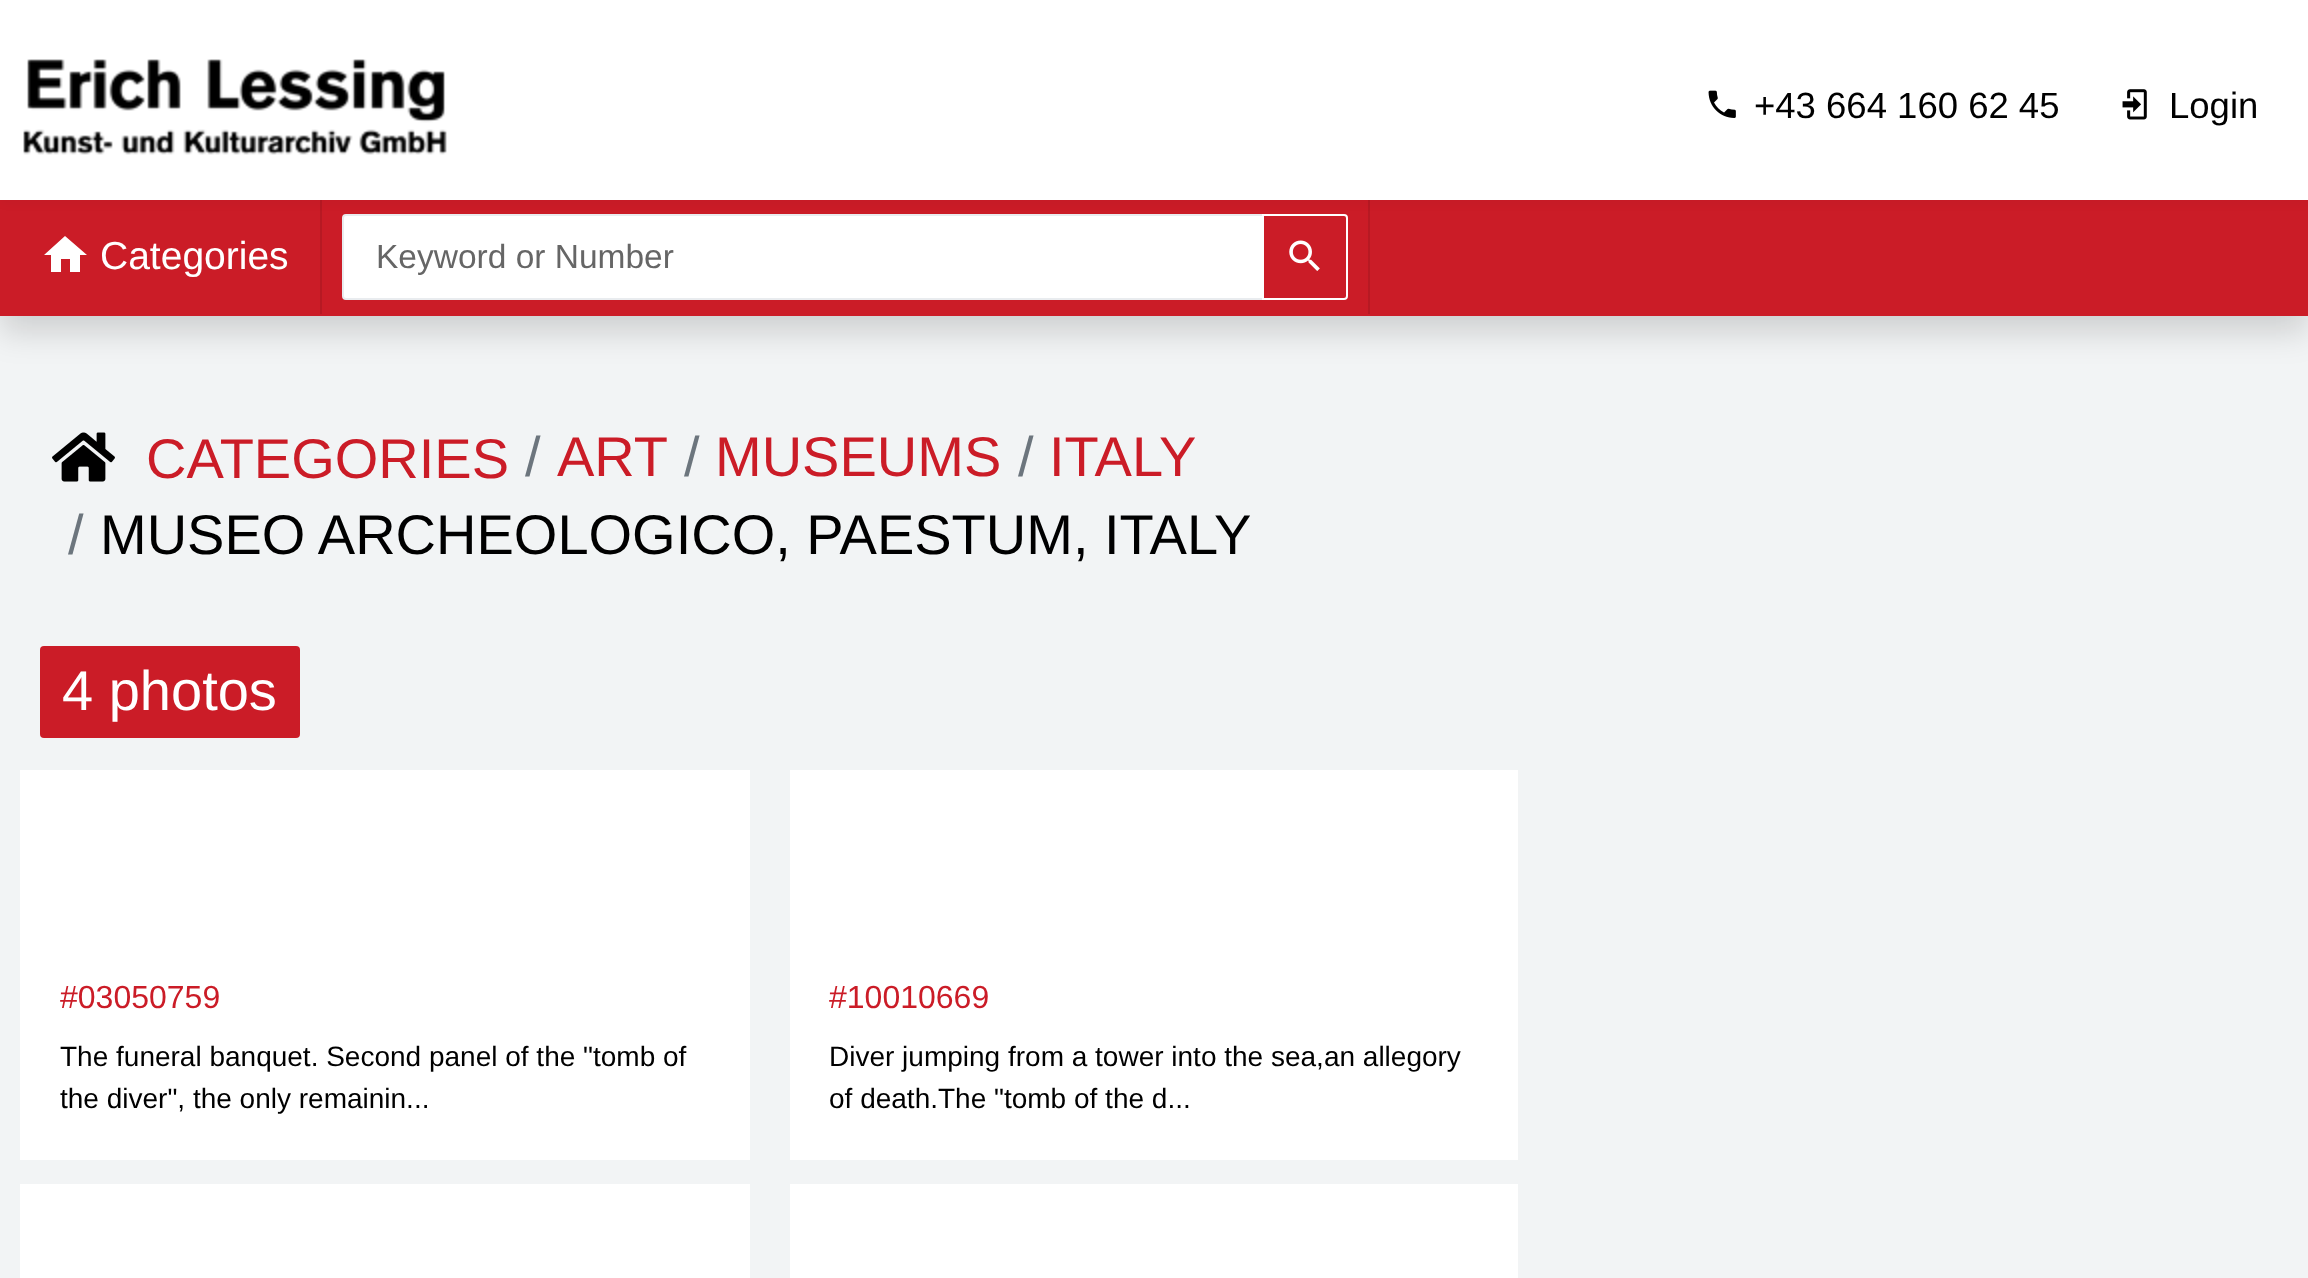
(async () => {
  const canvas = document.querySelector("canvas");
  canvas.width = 2308;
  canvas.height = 1278;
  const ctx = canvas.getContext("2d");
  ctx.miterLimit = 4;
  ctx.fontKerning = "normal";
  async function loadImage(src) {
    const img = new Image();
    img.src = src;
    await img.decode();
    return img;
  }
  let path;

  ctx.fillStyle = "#f2f4f5";
  ctx.fillRect(0, 0, 2308, 1278);
  ctx.fillStyle = "rgba(0, 0, 0, 0.15)";
  ctx.filter = "blur(16px)";
  ctx.beginPath();
  ctx.rect(0, 16, 2308, 316);
  ctx.fill();
  ctx.filter = "none";
  for (const [x, y, w, h, color] of [
    [0, 200, 2308, 116, "#cb1c27"],
    [320, 200, 2, 114, "#b71923"],
    [1368, 200, 2, 114, "#b71923"],
  ]) {
    ctx.fillStyle = color;
    ctx.fillRect(x, y, w, h);
  }
  ctx.fillStyle = "#ffffff";
  ctx.beginPath();
  ctx.roundRect(343, 215, 920, 84, [3, 0, 0, 3]);
  ctx.fill();
  ctx.strokeStyle = "#e9ecef";
  ctx.lineWidth = 2;
  ctx.stroke();
  ctx.beginPath();
  ctx.roundRect(1263, 215, 84, 84, [0, 3, 3, 0]);
  ctx.strokeStyle = "#ffffff";
  ctx.stroke();
  ctx.fillStyle = "rgba(0, 0, 0, 0.05)";
  ctx.filter = "blur(7px)";
  ctx.beginPath();
  ctx.rect(2, 0, 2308, 200);
  ctx.fill();
  ctx.filter = "none";
  ctx.fillStyle = "#ffffff";
  ctx.fillRect(0, 0, 2308, 200);
  ctx.drawImage(await loadImage("img/1.png"), 23, 59, 424, 96);
  ctx.drawImage(await loadImage("img/2.png"), 1708, 90, 28, 28);
  ctx.drawImage(await loadImage("img/3.png"), 2122, 89, 25, 31);
  path = new Path2D("M61 272V259H70V272H80V255H87L65 236L44 255H51V272Z");
  ctx.fill(path);
  ctx.drawImage(await loadImage("img/4.png"), 1289, 240, 31, 31);
  ctx.drawImage(await loadImage("img/5.png"), 52, 432, 63, 50);
  ctx.fillStyle = "#cb1c27";
  ctx.beginPath();
  ctx.roundRect(40, 646, 260, 92, 4);
  ctx.fill();
  for (const [x, y, w, h, color] of [
    [20, 770, 730, 390, "#ffffff"],
    [790, 770, 728, 390, "#ffffff"],
    [20, 1184, 730, 94, "#ffffff"],
    [790, 1184, 728, 94, "#ffffff"],
  ]) {
    ctx.fillStyle = color;
    ctx.fillRect(x, y, w, h);
  }
  ctx.font = "36.5px Liberation Sans";
  ctx.fillStyle = "#000000";
  ctx.fillText("+43 664 160 62 45", 1754, 118);
  ctx.fillText("Login", 2169, 118);
  ctx.font = "39px Liberation Sans";
  ctx.fillStyle = "#ffffff";
  ctx.fillText("Categories", 100, 269);
  ctx.font = "33.5px Liberation Sans";
  ctx.fillStyle = "#666666";
  ctx.fillText("Keyword or Number", 376, 268);
  ctx.font = "56px Liberation Sans";
  ctx.fillStyle = "#cb1c27";
  ctx.fillText("CATEGORIES", 146, 478);
  ctx.fillStyle = "#6c757d";
  ctx.fillText("/", 525, 476);
  ctx.fillStyle = "#cb1c27";
  ctx.fillText("ART", 557, 476);
  ctx.fillStyle = "#6c757d";
  ctx.fillText("/", 684, 476);
  ctx.fillStyle = "#cb1c27";
  ctx.fillText("MUSEUMS", 715, 476);
  ctx.fillStyle = "#6c757d";
  ctx.fillText("/", 1018, 476);
  ctx.fillStyle = "#cb1c27";
  ctx.fillText("ITALY", 1049, 476);
  ctx.fillStyle = "#6c757d";
  ctx.fillText("/", 68, 554);
  ctx.fillStyle = "#000000";
  ctx.fillText("MUSEO ARCHEOLOGICO, PAESTUM, ITALY", 100, 554);
  ctx.fillStyle = "#ffffff";
  ctx.fillText("4 photos", 62, 710);
  ctx.font = "32px Liberation Sans";
  ctx.fillStyle = "#cb1c27";
  ctx.fillText("#03050759", 60, 1008);
  ctx.font = "28px Liberation Sans";
  ctx.fillStyle = "#000000";
  ctx.fillText("The funeral banquet. Second panel of the \"tomb of", 60, 1066);
  ctx.fillText("the diver\", the only remainin...", 60, 1108);
  ctx.font = "32px Liberation Sans";
  ctx.fillStyle = "#cb1c27";
  ctx.fillText("#10010669", 829, 1008);
  ctx.font = "28px Liberation Sans";
  ctx.fillStyle = "#000000";
  ctx.fillText("Diver jumping from a tower into the sea,an allegory", 829, 1066);
  ctx.fillText("of death.The \"tomb of the d...", 829, 1108);
})();
